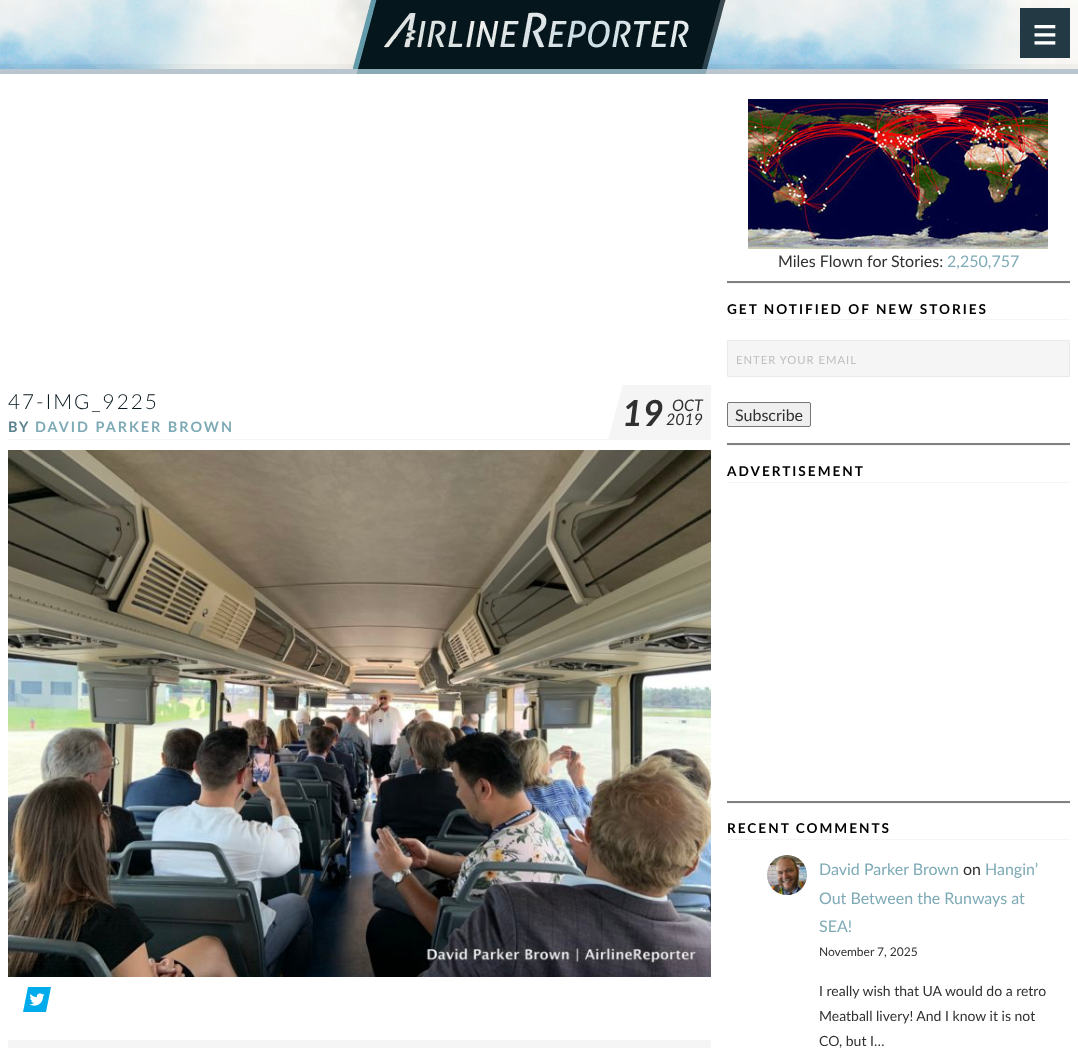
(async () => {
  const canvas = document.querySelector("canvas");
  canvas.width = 1078;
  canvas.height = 1048;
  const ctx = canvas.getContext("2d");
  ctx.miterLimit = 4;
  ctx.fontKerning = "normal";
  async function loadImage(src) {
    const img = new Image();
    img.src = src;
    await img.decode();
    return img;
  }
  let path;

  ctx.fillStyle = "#ffffff";
  ctx.fillRect(0, 0, 1078, 1048);
  ctx.drawImage(await loadImage("img/1.png"), 0, 0, 1078, 69);
  ctx.fillStyle = "#b9c6cf";
  ctx.fillRect(0, 69, 1078, 5);
  ctx.drawImage(await loadImage("img/2.png"), 353, 0, 373, 74);
  ctx.fillStyle = "#233a44";
  ctx.fillRect(1020, 8, 50, 50);
  ctx.fillStyle = "#f5f5f5";
  ctx.fillRect(8, 439, 703, 1);
  ctx.drawImage(await loadImage("img/3.png"), 608, 385, 103, 54);
  ctx.drawImage(await loadImage("img/4.png"), 8, 450, 703, 527);
  ctx.fillStyle = "#00abec";
  ctx.fillRect(28, 987, 18, 25);
  ctx.drawImage(await loadImage("img/5.png"), 29, 993, 16, 13);
  path = new Path2D("M28 987V1012H23ZM46 1012V987H51Z");
  ctx.fill(path);
  ctx.fillStyle = "#f5f5f5";
  ctx.fillRect(8, 1040, 703, 8);
  ctx.drawImage(await loadImage("img/6.png"), 748, 99, 300, 150);
  for (const [x, y, w, h, color] of [
    [727, 283, 343, 1, "#f5f5f5"],
    [727, 281, 343, 2, "#808080"],
    [727, 319, 343, 1, "#f5f5f5"],
  ]) {
    ctx.fillStyle = color;
    ctx.fillRect(x, y, w, h);
  }
  ctx.beginPath();
  ctx.rect(727.5, 340.5, 342, 36);
  ctx.fill();
  ctx.strokeStyle = "#eaeaea";
  ctx.stroke();
  ctx.fillStyle = "#efefef";
  ctx.beginPath();
  ctx.roundRect(727.5, 402.5, 83, 24, 1.5);
  ctx.fill();
  ctx.strokeStyle = "#767676";
  ctx.stroke();
  for (const [x, y, w, h, color] of [
    [727, 445, 343, 1, "#f5f5f5"],
    [727, 443, 343, 2, "#808080"],
    [727, 482, 343, 1, "#f5f5f5"],
    [727, 803, 343, 1, "#f5f5f5"],
    [727, 801, 343, 2, "#808080"],
    [727, 839, 343, 1, "#f5f5f5"],
  ]) {
    ctx.fillStyle = color;
    ctx.fillRect(x, y, w, h);
  }
  ctx.drawImage(await loadImage("img/7.png"), 767, 855, 40, 40);
  ctx.font = "48px Lato";
  ctx.fillStyle = "#ffffff";
  ctx.fillText("≡", 1031, 51);
  ctx.letterSpacing = "2px";
  ctx.font = "300 20.75px Lato";
  ctx.fillStyle = "#06161d";
  ctx.fillText("47-IMG_9225", 8, 409);
  ctx.font = "bold 14.4px Lato";
  ctx.fillStyle = "#5a818d";
  ctx.fillText("BY", 8, 432);
  ctx.fillStyle = "#7eaab6";
  ctx.fillText("DAVID PARKER BROWN", 35, 432);
  ctx.letterSpacing = "0px";
  ctx.font = "italic bold 36px Lato";
  ctx.fillStyle = "#303030";
  ctx.fillText("19", 622, 426);
  ctx.font = "italic 16px Lato";
  ctx.fillText("OCT", 672, 411);
  ctx.fillText("2019", 666, 425);
  ctx.font = "16px Lato";
  ctx.fillText("Miles Flown for Stories:", 778, 267);
  ctx.fillStyle = "#7eaab6";
  ctx.fillText("2,250,757", 947, 267);
  ctx.letterSpacing = "2px";
  ctx.font = "bold 13.6px Lato";
  ctx.fillStyle = "#000000";
  ctx.fillText("GET NOTIFIED OF NEW STORIES", 727, 314);
  ctx.letterSpacing = "1px";
  ctx.font = "11.25px Lato";
  ctx.fillStyle = "#bbbfc1";
  ctx.fillText("ENTER YOUR EMAIL", 736, 364);
  ctx.letterSpacing = "0px";
  ctx.font = "16px Lato";
  ctx.fillStyle = "#303030";
  ctx.fillText("Subscribe", 735, 421);
  ctx.letterSpacing = "2px";
  ctx.font = "bold 13.6px Lato";
  ctx.fillStyle = "#000000";
  ctx.fillText("ADVERTISEMENT", 727, 476);
  ctx.fillText("RECENT COMMENTS", 727, 833);
  ctx.letterSpacing = "0px";
  ctx.font = "16px Lato";
  ctx.fillStyle = "#7eaab6";
  ctx.fillText("David Parker Brown", 819, 875);
  ctx.fillStyle = "#303030";
  ctx.fillText("on", 963, 875);
  ctx.fillStyle = "#7eaab6";
  for (const [text, x, y] of [
    ["Hangin’", 985, 875],
    ["Out Between the Runways at", 819, 904],
    ["SEA!", 819, 932],
  ]) {
    ctx.fillText(text, x, y);
  }
  ctx.font = "12px Lato";
  ctx.fillStyle = "#303030";
  ctx.fillText("November 7, 2025", 819, 956);
  ctx.font = "14px Lato";
  for (const [text, x, y] of [
    ["I really wish that UA would do a retro", 819, 996],
    ["Meatball livery! And I know it is not", 819, 1021],
    ["CO, but I…", 819, 1046],
  ]) {
    ctx.fillText(text, x, y);
  }
})();
